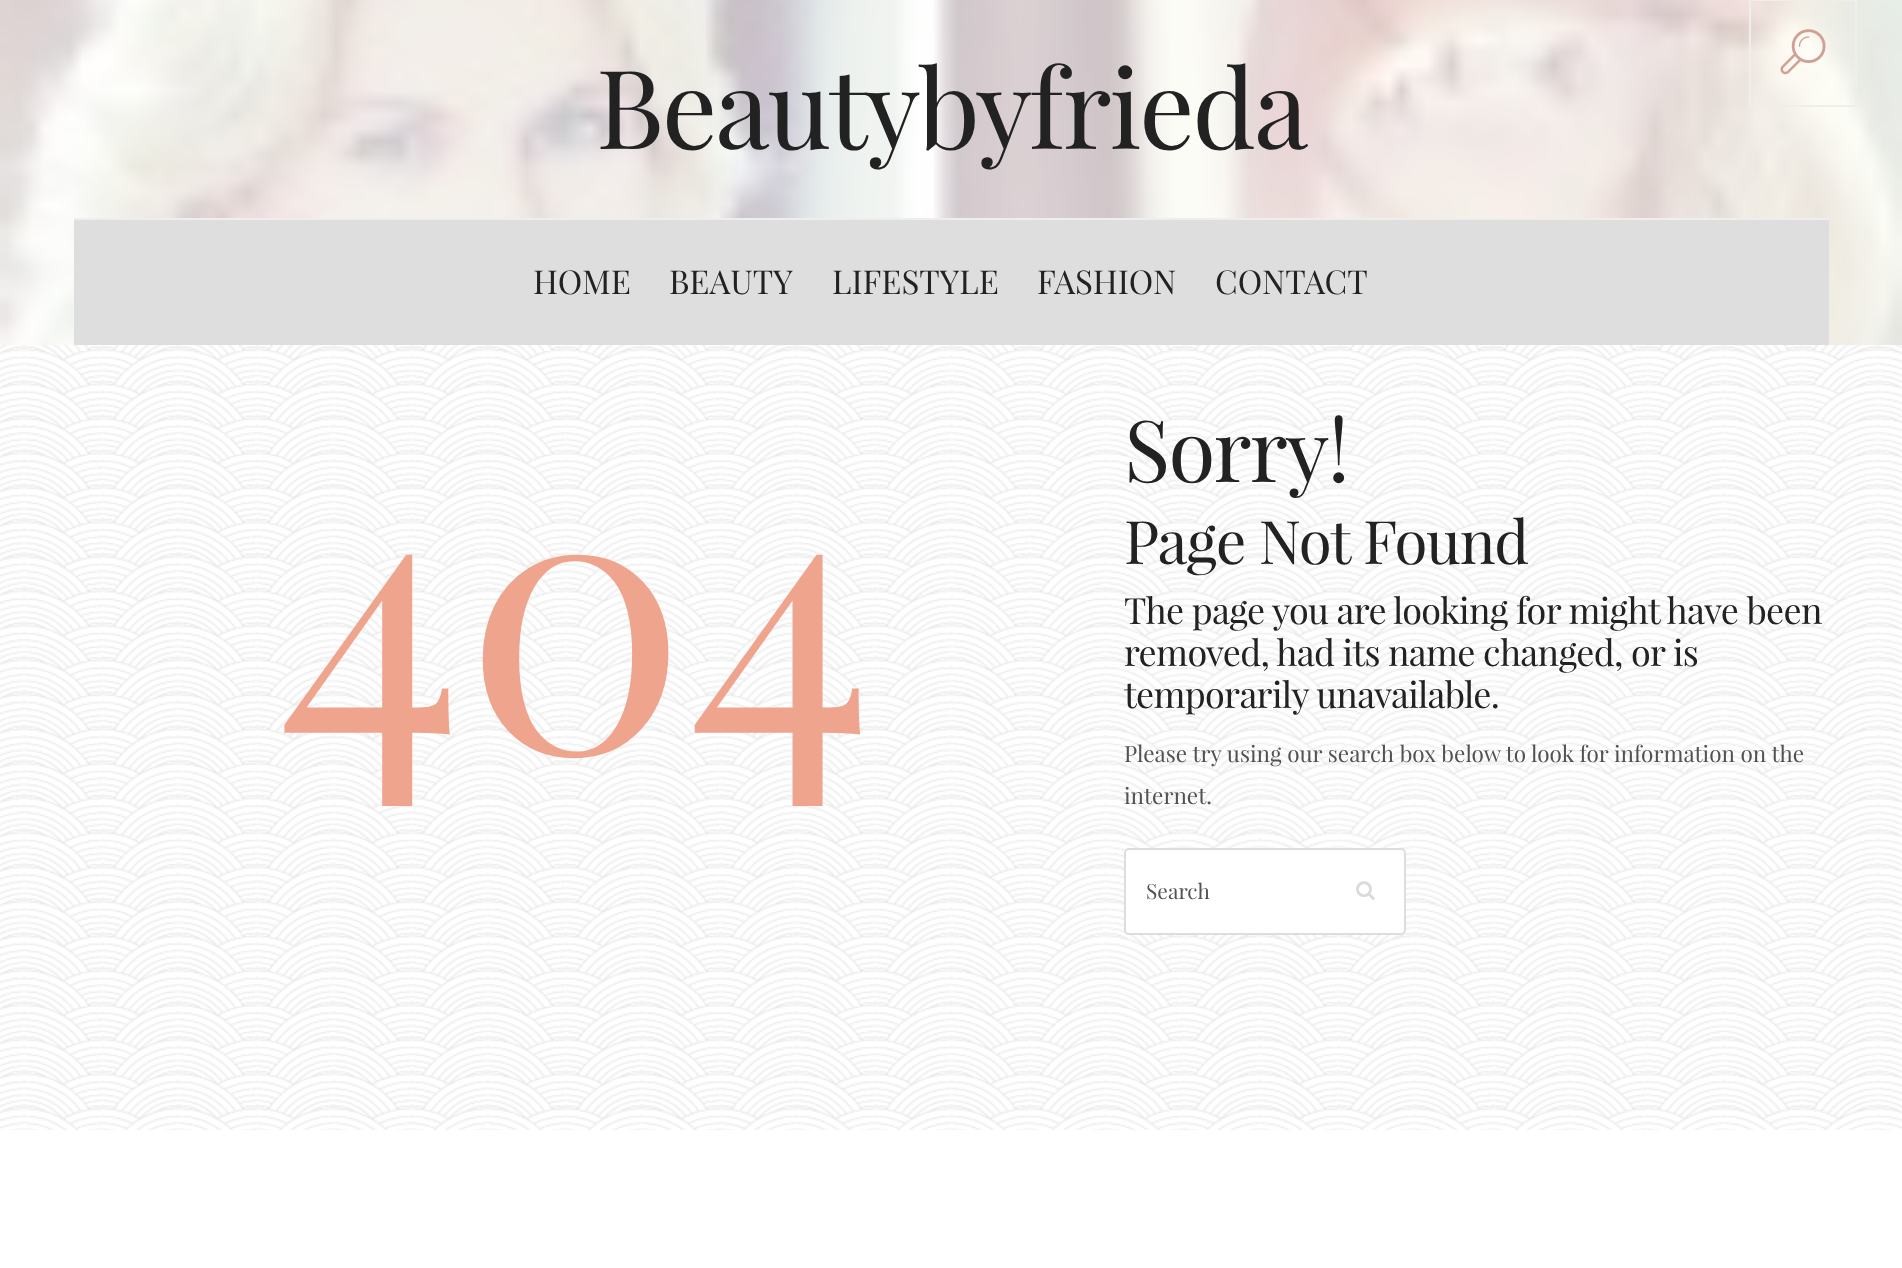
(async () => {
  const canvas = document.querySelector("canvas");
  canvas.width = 1902;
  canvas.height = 1268;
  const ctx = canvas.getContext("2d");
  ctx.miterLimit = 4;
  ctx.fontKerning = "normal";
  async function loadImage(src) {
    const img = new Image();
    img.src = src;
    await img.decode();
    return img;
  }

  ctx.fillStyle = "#ffffff";
  ctx.fillRect(0, 0, 1902, 1268);
  ctx.drawImage(await loadImage("img/1.png"), 0, 345, 1902, 785);
  ctx.drawImage(await loadImage("img/2.png"), 0, 0, 1902, 345);
  ctx.fillStyle = "#dedede";
  ctx.fillRect(74, 220, 1755, 125);
  ctx.fillStyle = "#eeeeee";
  ctx.fillRect(74, 218, 1755, 2);
  ctx.strokeStyle = "#eeeeee";
  ctx.lineWidth = 2;
  ctx.strokeRect(1750, 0, 106, 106);
  ctx.drawImage(await loadImage("img/3.png"), 1780, 29, 46, 46);
  ctx.fillStyle = "#ffffff";
  ctx.beginPath();
  ctx.roundRect(1125, 849, 280, 85, 4);
  ctx.fill();
  ctx.strokeStyle = "#dddddd";
  ctx.stroke();
  ctx.drawImage(await loadImage("img/4.png"), 1356, 881, 19, 19);
  ctx.letterSpacing = "-2.25px";
  ctx.font = "109.5px Playfair Display";
  ctx.fillStyle = "#222222";
  ctx.fillText("Beautybyfrieda", 596, 149);
  ctx.letterSpacing = "0px";
  ctx.font = "33px Playfair Display";
  for (const [text, x, y] of [
    ["HOME", 533, 294],
    ["BEAUTY", 669, 294],
    ["LIFESTYLE", 832, 294],
    ["FASHION", 1037, 294],
    ["CONTACT", 1215, 294],
  ]) {
    ctx.fillText(text, x, y);
  }
  ctx.font = "375px Playfair Display";
  ctx.fillStyle = "#efa48d";
  ctx.fillText("404", 278, 753);
  ctx.letterSpacing = "-1.75px";
  ctx.font = "85.5px Playfair Display";
  ctx.fillStyle = "#222222";
  ctx.fillText("Sorry!", 1124, 482);
  ctx.letterSpacing = "-1.25px";
  ctx.font = "60px Playfair Display";
  ctx.fillText("Page Not Found", 1124, 564);
  ctx.letterSpacing = "-0.7px";
  ctx.font = "36px Playfair Display";
  for (const [text, x, y] of [
    ["The page you are looking for might have been", 1124, 624],
    ["removed, had its name changed, or is", 1124, 666],
    ["temporarily unavailable.", 1124, 708],
  ]) {
    ctx.fillText(text, x, y);
  }
  ctx.letterSpacing = "0px";
  ctx.font = "22.5px Playfair Display";
  ctx.fillStyle = "#525252";
  ctx.fillText("Please try using our search box below to look for information on the", 1124, 762);
  ctx.fillText("internet.", 1124, 804);
  ctx.font = "21px Playfair Display";
  ctx.fillText("Search", 1146, 899);
})();
